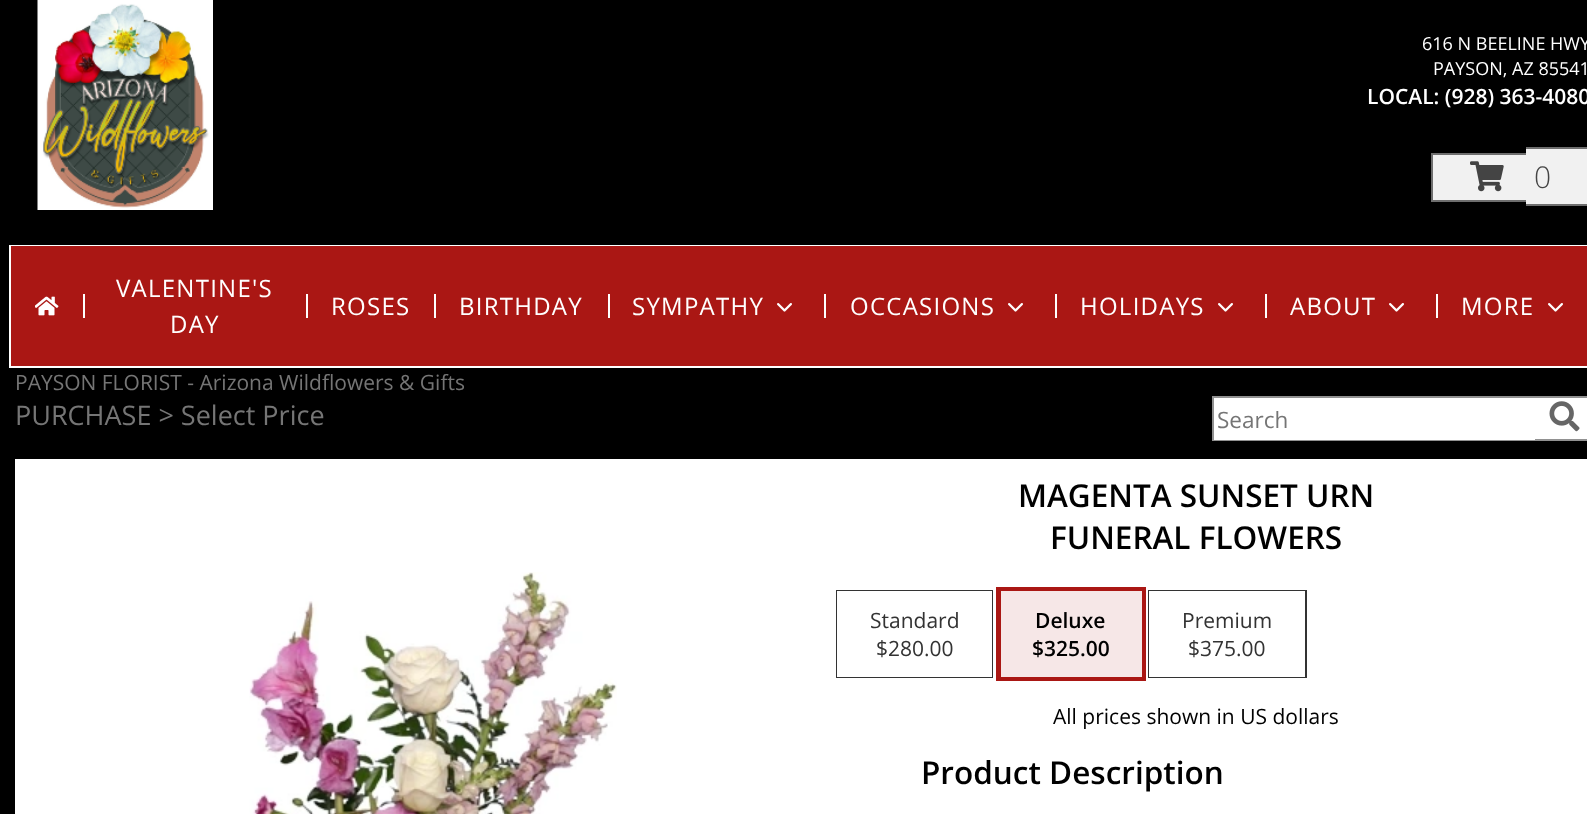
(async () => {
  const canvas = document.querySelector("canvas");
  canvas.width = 1587;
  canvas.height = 814;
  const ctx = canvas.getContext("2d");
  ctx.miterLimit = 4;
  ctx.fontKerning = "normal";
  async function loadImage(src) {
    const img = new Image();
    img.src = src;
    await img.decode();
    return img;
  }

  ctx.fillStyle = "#000000";
  ctx.fillRect(0, 0, 1587, 814);
  ctx.drawImage(await loadImage("img/1.png"), 37, 0, 176, 210);
  for (const [x, y, w, h, color] of [
    [1433, 155, 93, 45, "#f1f1f1"],
    [1431, 153, 95, 2, "#6e6e6e"],
    [1431, 200, 95, 2, "#6e6e6e"],
    [1431, 153, 2, 48, "#6e6e6e"],
    [1526, 149, 61, 55, "#f1f1f1"],
    [1526, 147, 61, 2, "#6e6e6e"],
    [1526, 204, 61, 2, "#6e6e6e"],
  ]) {
    ctx.fillStyle = color;
    ctx.fillRect(x, y, w, h);
  }
  ctx.drawImage(await loadImage("img/2.png"), 1470, 161, 34, 31);
  ctx.strokeStyle = "#ffffff";
  ctx.lineWidth = 2;
  ctx.strokeRect(10, 246, 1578, 121);
  ctx.fillStyle = "#aa1714";
  ctx.fillRect(11, 246, 1576, 120);
  ctx.drawImage(await loadImage("img/3.png"), 35, 296, 24, 20);
  for (const [x, y, w, h, color] of [
    [83, 294, 2, 24, "#ffffff"],
    [306, 294, 2, 24, "#ffffff"],
    [434, 294, 2, 24, "#ffffff"],
    [608, 294, 2, 24, "#ffffff"],
  ]) {
    ctx.fillStyle = color;
    ctx.fillRect(x, y, w, h);
  }
  ctx.drawImage(await loadImage("img/4.png"), 777, 303, 15, 9);
  ctx.fillRect(824, 294, 2, 24);
  ctx.drawImage(await loadImage("img/4.png"), 1008, 303, 15, 9);
  ctx.fillRect(1055, 294, 2, 24);
  ctx.drawImage(await loadImage("img/4.png"), 1218, 303, 15, 9);
  ctx.fillRect(1265, 294, 2, 24);
  ctx.drawImage(await loadImage("img/4.png"), 1389, 303, 15, 9);
  ctx.fillRect(1436, 294, 2, 24);
  ctx.drawImage(await loadImage("img/4.png"), 1548, 303, 15, 9);
  ctx.fillRect(1535, 398, 52, 41);
  ctx.strokeStyle = "#919191";
  ctx.strokeRect(1213, 397, 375, 43);
  ctx.fillRect(1214, 398, 321, 42);
  ctx.drawImage(await loadImage("img/5.png"), 1549, 401, 31, 31);
  ctx.fillRect(15, 459, 1572, 355);
  ctx.drawImage(await loadImage("img/6.png"), 249, 572, 368, 242);
  ctx.strokeStyle = "#333333";
  ctx.strokeRect(837, 591, 155, 86);
  ctx.fillRect(837, 591, 155, 86);
  ctx.strokeStyle = "#aa1714";
  ctx.lineWidth = 5;
  ctx.strokeRect(998.5, 589.5, 145, 89);
  ctx.fillStyle = "#f6e7e7";
  ctx.fillRect(1001, 591, 141, 86);
  ctx.strokeStyle = "#333333";
  ctx.lineWidth = 2;
  ctx.strokeRect(1149, 591, 157, 86);
  ctx.fillStyle = "#ffffff";
  ctx.fillRect(1149, 591, 156, 86);
  ctx.font = "18px Open Sans";
  ctx.fillText("616 N BEELINE HWY", 1422, 50);
  ctx.fillText("PAYSON, AZ 85541", 1433, 75);
  ctx.font = "600 21px Open Sans";
  ctx.fillText("LOCAL: (928) 363-4080", 1367, 104);
  ctx.font = "300 30px Open Sans";
  ctx.fillStyle = "#444444";
  ctx.fillText("0", 1534, 188);
  ctx.letterSpacing = "1.25px";
  ctx.font = "24px Open Sans";
  ctx.fillStyle = "#ffffff";
  for (const [text, x, y] of [
    ["VALENTINE'S", 116, 297],
    ["DAY", 170, 333],
    ["ROSES", 331, 315],
    ["BIRTHDAY", 459, 315],
    ["SYMPATHY", 632, 315],
    ["OCCASIONS", 850, 315],
    ["HOLIDAYS", 1080, 315],
    ["ABOUT", 1290, 315],
    ["MORE", 1461, 315],
  ]) {
    ctx.fillText(text, x, y);
  }
  ctx.letterSpacing = "0px";
  ctx.font = "21px Open Sans";
  ctx.fillStyle = "#757575";
  ctx.fillText("PAYSON FLORIST - Arizona Wildflowers & Gifts", 15, 390);
  ctx.font = "27px Open Sans";
  ctx.fillText("PURCHASE > Select Price", 15, 425);
  ctx.font = "22.5px Open Sans";
  ctx.fillText("Search", 1217, 428);
  ctx.font = "600 31.5px Open Sans";
  ctx.fillStyle = "#000000";
  ctx.fillText("MAGENTA SUNSET URN", 1018, 507);
  ctx.fillText("FUNERAL FLOWERS", 1050, 549);
  ctx.font = "21px Open Sans";
  ctx.fillStyle = "#333333";
  ctx.fillText("Standard", 870, 628);
  ctx.fillText("$280.00", 876, 656);
  ctx.font = "600 21px Open Sans";
  ctx.fillStyle = "#000000";
  ctx.fillText("Deluxe", 1035, 628);
  ctx.fillText("$325.00", 1032, 656);
  ctx.font = "21px Open Sans";
  ctx.fillStyle = "#333333";
  ctx.fillText("Premium", 1182, 628);
  ctx.fillText("$375.00", 1188, 656);
  ctx.fillStyle = "#000000";
  ctx.fillText("All prices shown in US dollars", 1053, 724);
  ctx.font = "600 31.5px Open Sans";
  ctx.fillText("Product Description", 921, 784);
})();
